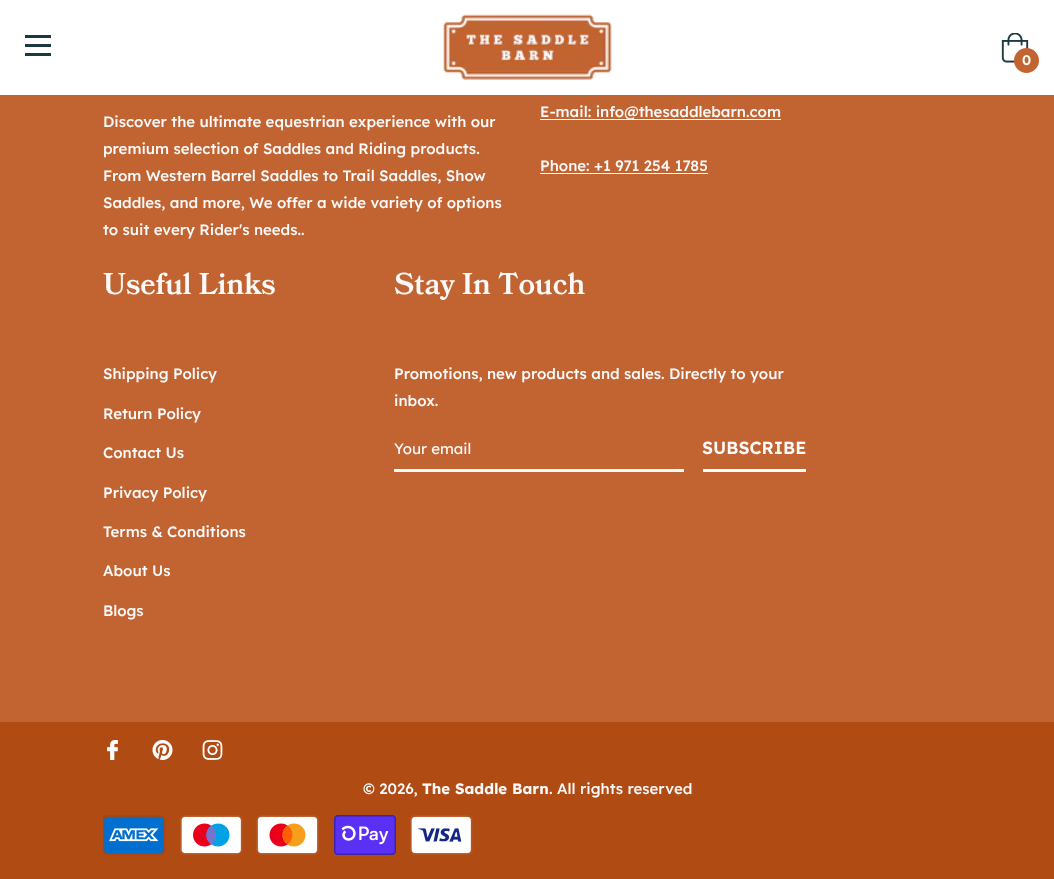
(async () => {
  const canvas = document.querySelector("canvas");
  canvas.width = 1054;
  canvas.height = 879;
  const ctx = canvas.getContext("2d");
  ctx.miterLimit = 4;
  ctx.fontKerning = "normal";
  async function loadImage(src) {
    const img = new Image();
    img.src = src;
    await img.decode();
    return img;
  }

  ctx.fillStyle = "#c26332";
  ctx.fillRect(0, 0, 1054, 879);
  for (const [x, y, w, h, color] of [
    [0, 0, 1054, 95, "#ffffff"],
    [25, 35, 26, 3, "#193a43"],
    [25, 44, 26, 3, "#193a43"],
    [25, 53, 26, 3, "#193a43"],
  ]) {
    ctx.fillStyle = color;
    ctx.fillRect(x, y, w, h);
  }
  ctx.drawImage(await loadImage("img/1.png"), 443, 14, 169, 66);
  ctx.drawImage(await loadImage("img/2.png"), 1001, 33, 28, 30);
  ctx.fillStyle = "#c26431";
  ctx.beginPath();
  ctx.arc(1026.5, 60.5, 12.5, 0, Math.PI * 2);
  ctx.fill();
  for (const [x, y, w, h, color] of [
    [540, 119, 241, 1, "#ffffff"],
    [540, 173, 168, 1, "#ffffff"],
    [394, 469, 290, 3, "#fafafa"],
    [703, 469, 103, 3, "#ffffff"],
    [0, 722, 1054, 157, "#b14b14"],
  ]) {
    ctx.fillStyle = color;
    ctx.fillRect(x, y, w, h);
  }
  ctx.drawImage(await loadImage("img/3.png"), 107, 740, 11, 20);
  ctx.drawImage(await loadImage("img/4.png"), 152, 740, 21, 20);
  ctx.drawImage(await loadImage("img/5.png"), 202, 740, 21, 20);
  ctx.drawImage(await loadImage("img/6.png"), 103, 815, 62, 40);
  ctx.drawImage(await loadImage("img/7.png"), 180, 815, 63, 40);
  ctx.drawImage(await loadImage("img/8.png"), 256, 815, 63, 40);
  ctx.drawImage(await loadImage("img/9.png"), 334, 815, 62, 40);
  ctx.drawImage(await loadImage("img/10.png"), 410, 815, 63, 40);
  ctx.font = "600 14px Lexend";
  ctx.fillStyle = "#fafafa";
  ctx.fillText("0", 1022, 65);
  ctx.font = "500 15px Lexend";
  for (const [text, x, y] of [
    ["Discover the ultimate equestrian experience with our", 103, 127],
    ["premium selection of Saddles and Riding products.", 103, 154],
    ["From Western Barrel Saddles to Trail Saddles, Show", 103, 181],
    ["Saddles, and more, We offer a wide variety of options", 103, 208],
    ["to suit every Rider's needs..", 103, 235],
    ["E-mail: info@thesaddlebarn.com", 540, 117],
    ["Phone: +1 971 254 1785", 540, 171],
  ]) {
    ctx.fillText(text, x, y);
  }
  ctx.font = "600 30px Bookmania";
  ctx.fillText("Useful Links", 103, 294);
  ctx.font = "500 15px Lexend";
  for (const [text, x, y] of [
    ["Shipping Policy", 103, 379],
    ["Return Policy", 103, 419],
    ["Contact Us", 103, 458],
    ["Privacy Policy", 103, 498],
    ["Terms & Conditions", 103, 537],
    ["About Us", 103, 576],
    ["Blogs", 103, 616],
  ]) {
    ctx.fillText(text, x, y);
  }
  ctx.font = "600 30px Bookmania";
  ctx.fillText("Stay In Touch", 394, 294);
  ctx.font = "500 15px Lexend";
  ctx.fillText("Promotions, new products and sales. Directly to your", 394, 379);
  ctx.fillText("inbox.", 394, 406);
  ctx.font = "15px Lexend";
  ctx.fillText("Your email", 394, 454);
  ctx.font = "600 17.5px Lexend";
  ctx.fillText("SUBSCRIBE", 702, 454);
  ctx.font = "500 15px Lexend";
  ctx.fillText("© 2026,", 363, 794);
  ctx.font = "bold 15px Lexend";
  ctx.fillText("The Saddle Barn", 422, 794);
  ctx.font = "500 15px Lexend";
  ctx.fillText(". All rights reserved", 549, 794);
})();
